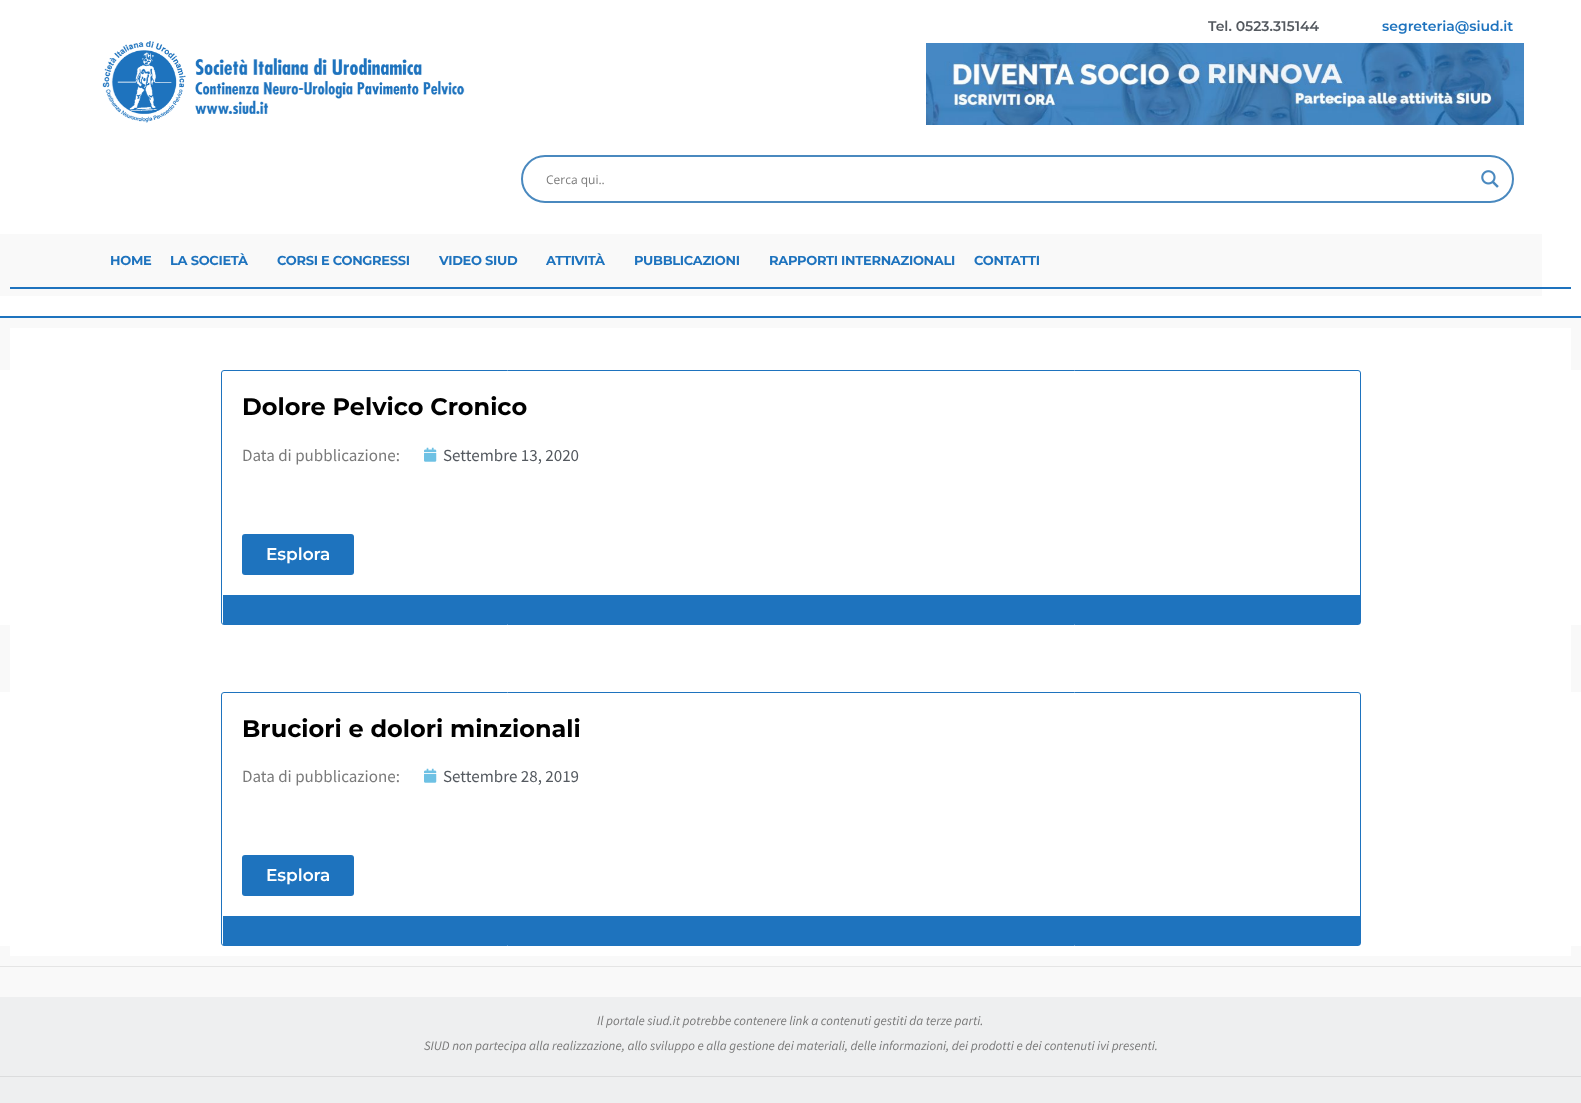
(async () => {
  const canvas = document.querySelector("canvas");
  canvas.width = 1581;
  canvas.height = 1103;
  const ctx = canvas.getContext("2d");
  ctx.miterLimit = 4;
  ctx.fontKerning = "normal";
  async function loadImage(src) {
    const img = new Image();
    img.src = src;
    await img.decode();
    return img;
  }

  ctx.fillStyle = "#f9f9f9";
  ctx.fillRect(0, 0, 1581, 1103);
  ctx.fillStyle = "#ffffff";
  ctx.fillRect(0, 0, 1581, 316);
  ctx.fillStyle = "#1e73be";
  ctx.fillRect(0, 316, 1581, 2);
  ctx.drawImage(await loadImage("img/1.png"), 102, 41, 363, 82);
  ctx.drawImage(await loadImage("img/2.png"), 926, 43, 598, 82);
  ctx.beginPath();
  ctx.roundRect(522, 156, 991, 46, 23);
  ctx.strokeStyle = "#4a89bf";
  ctx.lineWidth = 2;
  ctx.stroke();
  ctx.drawImage(await loadImage("img/3.png"), 1481, 170, 18, 18);
  for (const [x, y, w, h, color] of [
    [0, 234, 1542, 62, "#f9f9f9"],
    [10, 287, 1561, 2, "#1e73be"],
    [10, 328, 1561, 628, "#ffffff"],
    [0, 370, 1581, 255, "#ffffff"],
  ]) {
    ctx.fillStyle = color;
    ctx.fillRect(x, y, w, h);
  }
  ctx.beginPath();
  ctx.roundRect(221.5, 370.5, 1139, 254, 2.5);
  ctx.strokeStyle = "#1e73be";
  ctx.lineWidth = 1;
  ctx.stroke();
  ctx.fillStyle = "#1e73be";
  ctx.fillRect(223, 595, 1137, 29);
  ctx.beginPath();
  ctx.roundRect(242, 534, 112, 41, 3);
  ctx.fill();
  ctx.drawImage(await loadImage("img/4.png"), 424, 447, 13, 15);
  ctx.fillStyle = "#ffffff";
  ctx.fillRect(0, 692, 1581, 254);
  ctx.beginPath();
  ctx.roundRect(221.5, 692.5, 1139, 253, 2.5);
  ctx.stroke();
  ctx.fillStyle = "#1e73be";
  ctx.fillRect(223, 916, 1137, 29);
  ctx.beginPath();
  ctx.roundRect(242, 855, 112, 41, 3);
  ctx.fill();
  ctx.drawImage(await loadImage("img/4.png"), 424, 768, 13, 15);
  for (const [x, y, w, h, color] of [
    [0, 966, 1581, 1, "#e5e5e5"],
    [0, 997, 1581, 79, "#eeeff0"],
    [0, 1077, 1581, 26, "#eeeff0"],
    [0, 1076, 1581, 1, "#dbdcdd"],
  ]) {
    ctx.fillStyle = color;
    ctx.fillRect(x, y, w, h);
  }
  ctx.font = "600 14px Montserrat";
  ctx.fillStyle = "#54595f";
  ctx.fillText("Tel. 0523.315144", 1208, 31);
  ctx.fillStyle = "#1e73be";
  ctx.fillText("segreteria@siud.it", 1382, 31);
  ctx.font = "12px Open Sans";
  ctx.fillStyle = "#7a7a7a";
  ctx.fillText("Cerca qui..", 546, 184);
  ctx.letterSpacing = "-0.3px";
  ctx.font = "bold 13px Montserrat";
  ctx.fillStyle = "#1e73be";
  for (const [text, x, y] of [
    ["HOME", 110, 265],
    ["LA SOCIETÀ", 170, 265],
    ["CORSI E CONGRESSI", 277, 265],
    ["VIDEO SIUD", 439, 265],
    ["ATTIVITÀ", 546, 265],
    ["PUBBLICAZIONI", 634, 265],
    ["RAPPORTI INTERNAZIONALI", 769, 265],
    ["CONTATTI", 974, 265],
  ]) {
    ctx.fillText(text, x, y);
  }
  ctx.letterSpacing = "0px";
  ctx.font = "bold 24px Montserrat";
  ctx.fillStyle = "#000000";
  ctx.fillText("Dolore Pelvico Cronico", 242, 415);
  ctx.font = "17px Source Sans Pro";
  ctx.fillStyle = "#7a7a7a";
  ctx.fillText("Data di pubblicazione:", 242, 461);
  ctx.font = "600 17px Montserrat";
  ctx.fillStyle = "#ffffff";
  ctx.fillText("Esplora", 266, 560);
  ctx.font = "17px Source Sans Pro";
  ctx.fillStyle = "#54595f";
  ctx.fillText("Settembre 13, 2020", 443, 461);
  ctx.font = "bold 24px Montserrat";
  ctx.fillStyle = "#000000";
  ctx.fillText("Bruciori e dolori minzionali", 242, 737);
  ctx.font = "17px Source Sans Pro";
  ctx.fillStyle = "#7a7a7a";
  ctx.fillText("Data di pubblicazione:", 242, 782);
  ctx.font = "600 17px Montserrat";
  ctx.fillStyle = "#ffffff";
  ctx.fillText("Esplora", 266, 881);
  ctx.font = "17px Source Sans Pro";
  ctx.fillStyle = "#54595f";
  ctx.fillText("Settembre 28, 2019", 443, 782);
  ctx.font = "italic 13px Source Sans Pro";
  ctx.fillStyle = "#7a7a7a";
  ctx.fillText("Il portale siud.it potrebbe contenere link a contenuti gestiti da terze parti.", 597, 1025);
  ctx.fillText("SIUD non partecipa alla realizzazione, allo sviluppo e alla gestione dei materiali, delle informazioni, dei prodotti e dei contenuti ivi presenti.", 424, 1050);
})();
